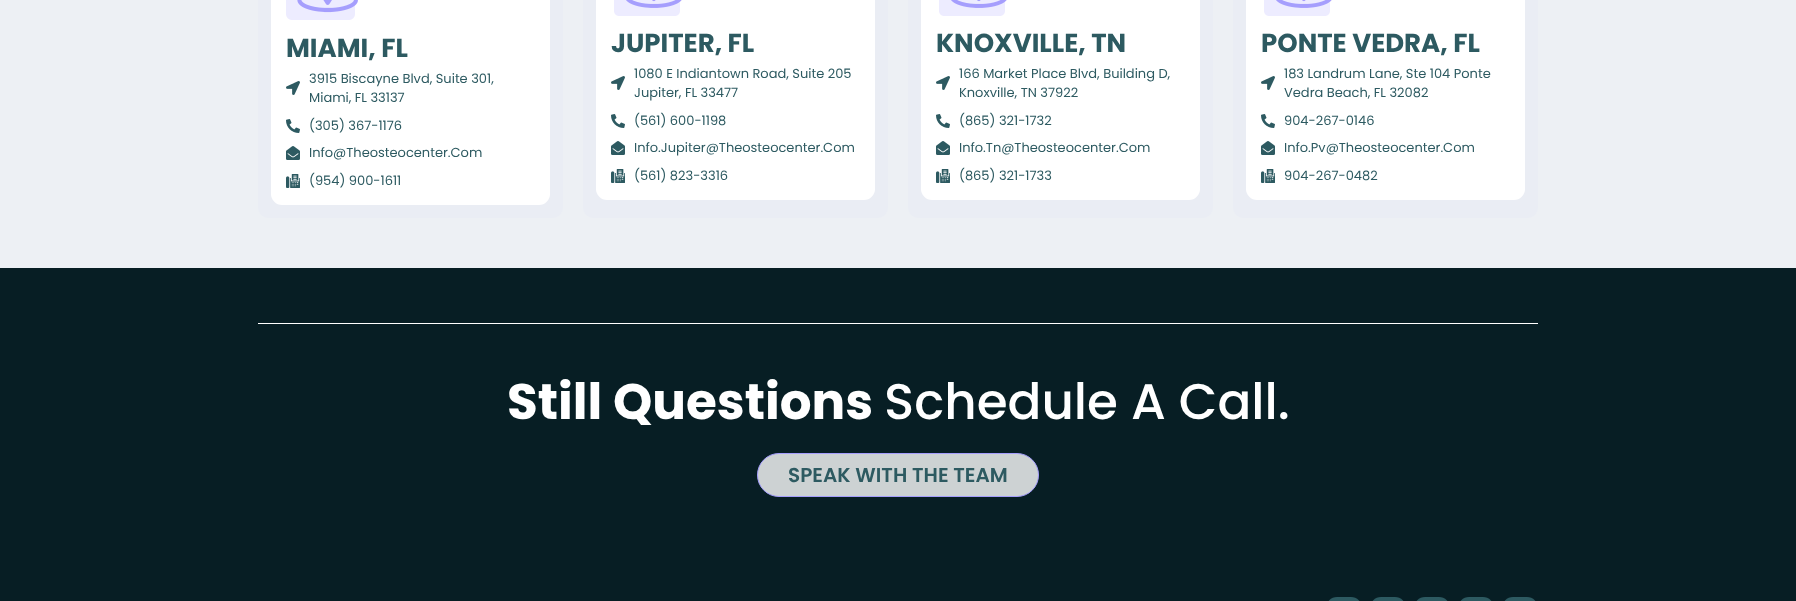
(async () => {
  const canvas = document.querySelector("canvas");
  canvas.width = 1796;
  canvas.height = 601;
  const ctx = canvas.getContext("2d");
  ctx.miterLimit = 4;
  ctx.fontKerning = "normal";
  async function loadImage(src) {
    const img = new Image();
    img.src = src;
    await img.decode();
    return img;
  }

  ctx.fillStyle = "#edf0f4";
  ctx.fillRect(0, 0, 1796, 601);
  ctx.fillStyle = "#eaedf4";
  ctx.beginPath();
  ctx.roundRect(258, -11, 305, 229, 11);
  ctx.fill();
  ctx.fillStyle = "#ffffff";
  ctx.beginPath();
  ctx.roundRect(271, -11, 279, 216, 11);
  ctx.fill();
  ctx.drawImage(await loadImage("img/1.png"), 286, 0, 72, 20);
  ctx.drawImage(await loadImage("img/2.png"), 286, 81, 14, 14);
  ctx.drawImage(await loadImage("img/3.png"), 286, 119, 14, 14);
  ctx.drawImage(await loadImage("img/4.png"), 286, 146, 14, 14);
  ctx.drawImage(await loadImage("img/5.png"), 286, 174, 14, 14);
  ctx.fillStyle = "#eaedf4";
  ctx.beginPath();
  ctx.roundRect(583, -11, 305, 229, 11);
  ctx.fill();
  ctx.fillStyle = "#ffffff";
  ctx.beginPath();
  ctx.roundRect(596, -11, 279, 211, 11);
  ctx.fill();
  ctx.drawImage(await loadImage("img/6.png"), 614, 0, 68, 16);
  ctx.drawImage(await loadImage("img/2.png"), 611, 76, 14, 14);
  ctx.drawImage(await loadImage("img/3.png"), 611, 114, 14, 14);
  ctx.drawImage(await loadImage("img/4.png"), 611, 141, 14, 14);
  ctx.drawImage(await loadImage("img/5.png"), 611, 169, 14, 14);
  ctx.fillStyle = "#eaedf4";
  ctx.beginPath();
  ctx.roundRect(908, -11, 305, 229, 11);
  ctx.fill();
  ctx.fillStyle = "#ffffff";
  ctx.beginPath();
  ctx.roundRect(921, -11, 279, 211, 11);
  ctx.fill();
  ctx.drawImage(await loadImage("img/6.png"), 939, 0, 68, 16);
  ctx.drawImage(await loadImage("img/2.png"), 936, 76, 14, 14);
  ctx.drawImage(await loadImage("img/3.png"), 936, 114, 14, 14);
  ctx.drawImage(await loadImage("img/4.png"), 936, 141, 14, 14);
  ctx.drawImage(await loadImage("img/5.png"), 936, 169, 14, 14);
  ctx.fillStyle = "#eaedf4";
  ctx.beginPath();
  ctx.roundRect(1233, -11, 305, 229, 11);
  ctx.fill();
  ctx.fillStyle = "#ffffff";
  ctx.beginPath();
  ctx.roundRect(1246, -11, 279, 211, 11);
  ctx.fill();
  ctx.drawImage(await loadImage("img/6.png"), 1264, 0, 68, 16);
  ctx.drawImage(await loadImage("img/2.png"), 1261, 76, 14, 14);
  ctx.drawImage(await loadImage("img/3.png"), 1261, 114, 14, 14);
  ctx.drawImage(await loadImage("img/4.png"), 1261, 141, 14, 14);
  ctx.drawImage(await loadImage("img/5.png"), 1261, 169, 14, 14);
  ctx.fillStyle = "#071e24";
  ctx.fillRect(0, 268, 1796, 333);
  ctx.fillStyle = "#ffffff";
  ctx.fillRect(258, 323, 1280, 1);
  ctx.fillStyle = "#cdd2d3";
  ctx.beginPath();
  ctx.roundRect(757.5, 453.5, 281, 43, 21.5);
  ctx.fill();
  ctx.strokeStyle = "#a59efd";
  ctx.stroke();
  ctx.fillStyle = "#2d5a61";
  ctx.beginPath();
  ctx.roundRect(1326, 597, 36, 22, 18);
  ctx.fill();
  ctx.beginPath();
  ctx.roundRect(1370, 597, 36, 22, 18);
  ctx.fill();
  ctx.beginPath();
  ctx.roundRect(1414, 597, 36, 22, 18);
  ctx.fill();
  ctx.beginPath();
  ctx.roundRect(1458, 597, 36, 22, 18);
  ctx.fill();
  ctx.beginPath();
  ctx.roundRect(1502, 597, 36, 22, 18);
  ctx.fill();
  ctx.font = "bold 26px Poppins";
  ctx.fillText("MIAMI, FL", 286, 57);
  ctx.font = "13px Poppins";
  for (const [text, x, y] of [
    ["3915 Biscayne Blvd, Suite 301,", 309, 83],
    ["Miami, FL 33137", 309, 102],
    ["(305) 367-1176", 309, 130],
    ["Info@Theosteocenter.Com", 309, 157],
    ["(954) 900-1611", 309, 185],
  ]) {
    ctx.fillText(text, x, y);
  }
  ctx.font = "bold 26px Poppins";
  ctx.fillText("JUPITER, FL", 611, 52);
  ctx.font = "13px Poppins";
  for (const [text, x, y] of [
    ["1080 E Indiantown Road, Suite 205", 634, 78],
    ["Jupiter, FL 33477", 634, 97],
    ["(561) 600-1198", 634, 125],
    ["Info.Jupiter@Theosteocenter.Com", 634, 152],
    ["(561) 823-3316", 634, 180],
  ]) {
    ctx.fillText(text, x, y);
  }
  ctx.font = "bold 26px Poppins";
  ctx.fillText("KNOXVILLE, TN", 936, 52);
  ctx.font = "13px Poppins";
  for (const [text, x, y] of [
    ["166 Market Place Blvd, Building D,", 959, 78],
    ["Knoxville, TN 37922", 959, 97],
    ["(865) 321-1732", 959, 125],
    ["Info.Tn@Theosteocenter.Com", 959, 152],
    ["(865) 321-1733", 959, 180],
  ]) {
    ctx.fillText(text, x, y);
  }
  ctx.font = "bold 26px Poppins";
  ctx.fillText("PONTE VEDRA, FL", 1261, 52);
  ctx.font = "13px Poppins";
  for (const [text, x, y] of [
    ["183 Landrum Lane, Ste 104 Ponte", 1284, 78],
    ["Vedra Beach, FL 32082", 1284, 97],
    ["904-267-0146", 1284, 125],
    ["Info.Pv@Theosteocenter.Com", 1284, 152],
    ["904-267-0482", 1284, 180],
  ]) {
    ctx.fillText(text, x, y);
  }
  ctx.font = "bold 50px Poppins";
  ctx.fillStyle = "#ffffff";
  ctx.fillText("Still Questions", 507, 419);
  ctx.font = "500 50px Poppins";
  ctx.fillText("Schedule A Call.", 884, 419);
  ctx.font = "600 20px Poppins";
  ctx.fillStyle = "#2d5a61";
  ctx.fillText("SPEAK WITH THE TEAM", 788, 482);
})();
